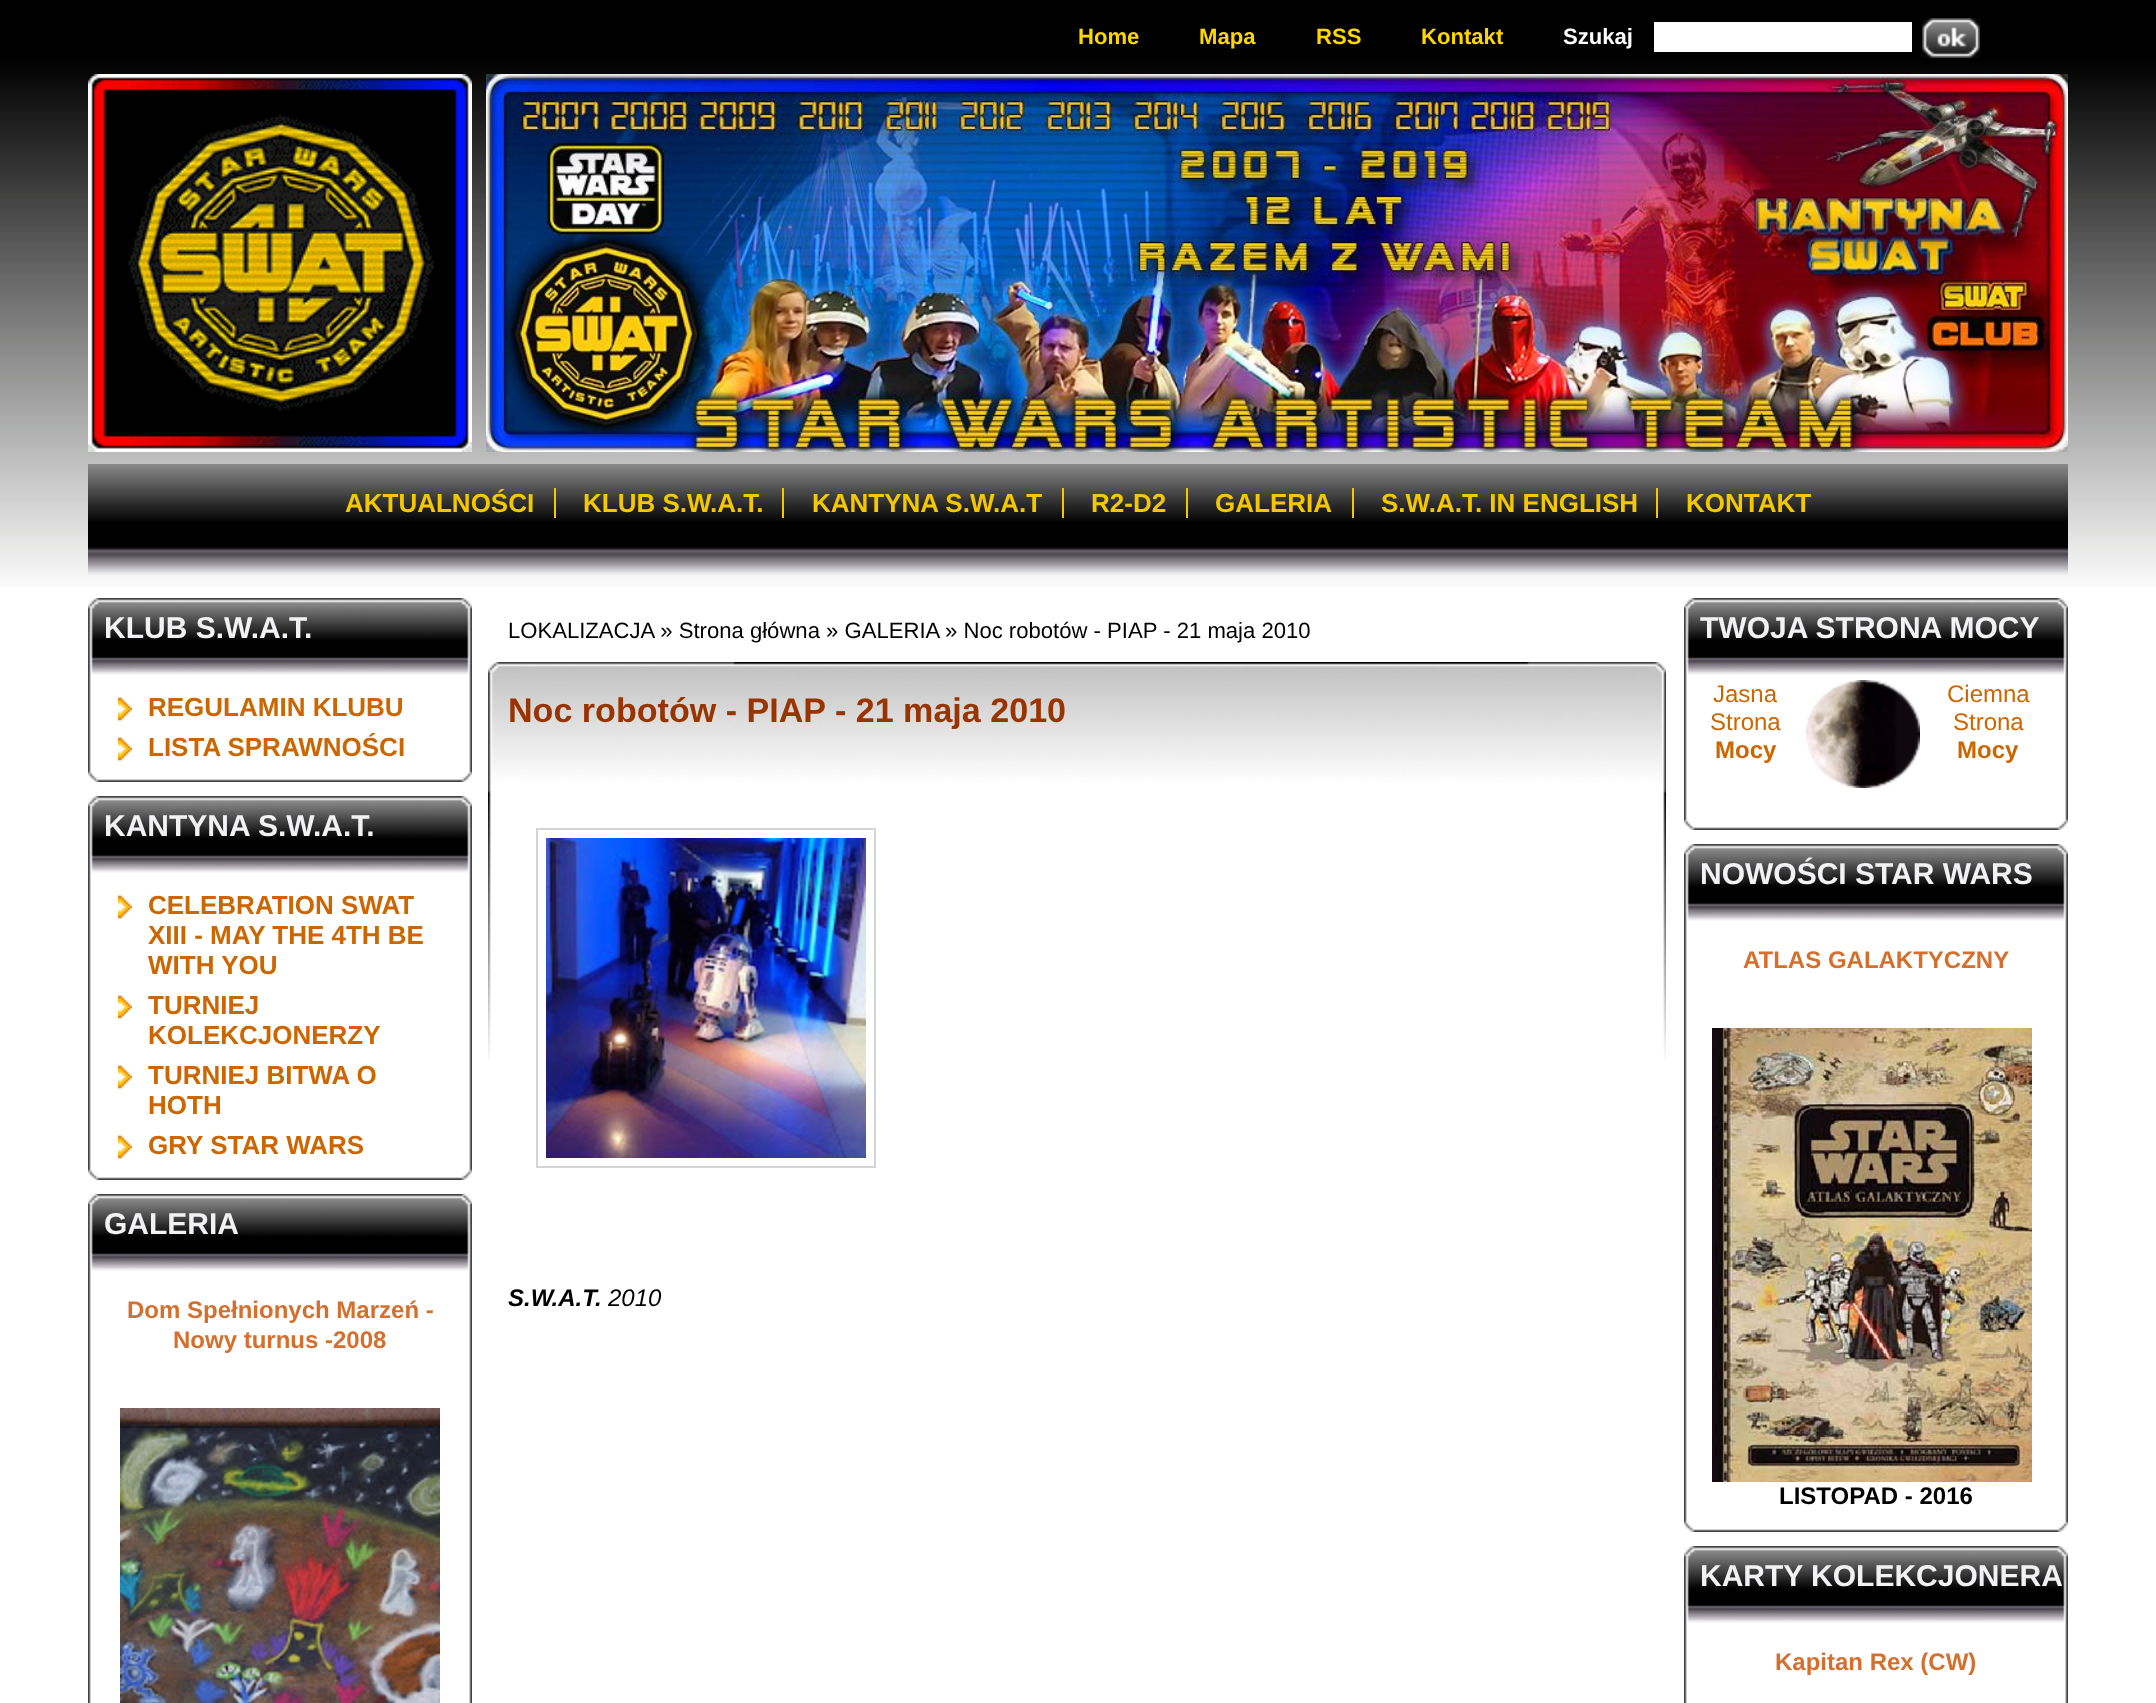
(async () => {
  const canvas = document.querySelector("canvas");
  canvas.width = 2156;
  canvas.height = 1703;
  const ctx = canvas.getContext("2d");
  ctx.miterLimit = 4;
  ctx.fontKerning = "normal";
  async function loadImage(src) {
    const img = new Image();
    img.src = src;
    await img.decode();
    return img;
  }

  ctx.fillStyle = "#ffffff";
  ctx.fillRect(0, 0, 2156, 1703);
  ctx.drawImage(await loadImage("img/1.png"), 0, 0, 2156, 587);
  ctx.fillRect(1654, 22, 258, 30);
  ctx.drawImage(await loadImage("img/2.png"), 1922, 18, 58, 40);
  ctx.drawImage(await loadImage("img/3.png"), 88, 74, 384, 378);
  ctx.drawImage(await loadImage("img/4.png"), 486, 74, 1582, 378);
  ctx.drawImage(await loadImage("img/5.png"), 88, 464, 1980, 111);
  for (const [x, y, w, h, color] of [
    [554, 488, 2, 30, "#f4c800"],
    [782, 488, 2, 30, "#f4c800"],
    [1062, 488, 2, 30, "#f4c800"],
    [1186, 488, 2, 30, "#f4c800"],
    [1352, 488, 2, 30, "#f4c800"],
    [1656, 488, 2, 30, "#f4c800"],
  ]) {
    ctx.fillStyle = color;
    ctx.fillRect(x, y, w, h);
  }
  ctx.drawImage(await loadImage("img/6.png"), 88, 675, 384, 96);
  ctx.drawImage(await loadImage("img/7.png"), 88, 598, 384, 77);
  ctx.drawImage(await loadImage("img/8.png"), 88, 771, 384, 11);
  ctx.drawImage(await loadImage("img/9.png"), 118, 697, 14, 24);
  ctx.drawImage(await loadImage("img/9.png"), 118, 737, 14, 24);
  ctx.drawImage(await loadImage("img/10.png"), 88, 873, 384, 296);
  ctx.drawImage(await loadImage("img/7.png"), 88, 796, 384, 77);
  ctx.drawImage(await loadImage("img/8.png"), 88, 1169, 384, 11);
  ctx.drawImage(await loadImage("img/9.png"), 118, 895, 14, 24);
  ctx.drawImage(await loadImage("img/9.png"), 118, 995, 14, 24);
  ctx.drawImage(await loadImage("img/9.png"), 118, 1065, 14, 24);
  ctx.drawImage(await loadImage("img/9.png"), 118, 1135, 14, 24);
  ctx.drawImage(await loadImage("img/11.png"), 88, 1271, 384, 432);
  ctx.drawImage(await loadImage("img/7.png"), 88, 1194, 384, 77);
  ctx.drawImage(await loadImage("img/12.png"), 120, 1408, 320, 295);
  ctx.drawImage(await loadImage("img/13.png"), 488, 662, 1178, 399);
  ctx.strokeStyle = "#d5d4d5";
  ctx.lineWidth = 2;
  ctx.strokeRect(537, 829, 338, 338);
  ctx.drawImage(await loadImage("img/14.png"), 546, 838, 320, 320);
  ctx.drawImage(await loadImage("img/15.png"), 1684, 675, 384, 144);
  ctx.drawImage(await loadImage("img/7.png"), 1684, 598, 384, 77);
  ctx.drawImage(await loadImage("img/8.png"), 1684, 819, 384, 11);
  ctx.drawImage(await loadImage("img/16.png"), 1806, 680, 60, 108);
  ctx.drawImage(await loadImage("img/17.png"), 1866, 680, 54, 108);
  ctx.drawImage(await loadImage("img/18.png"), 1684, 921, 384, 600);
  ctx.drawImage(await loadImage("img/7.png"), 1684, 844, 384, 77);
  ctx.drawImage(await loadImage("img/8.png"), 1684, 1521, 384, 11);
  ctx.drawImage(await loadImage("img/19.png"), 1712, 1028, 320, 454);
  ctx.drawImage(await loadImage("img/20.png"), 1684, 1623, 384, 80);
  ctx.drawImage(await loadImage("img/7.png"), 1684, 1546, 384, 77);
  ctx.font = "bold 22.1px Liberation Sans";
  ctx.fillStyle = "#ffd700";
  for (const [text, x, y] of [
    ["Home", 1078, 44],
    ["Mapa", 1199, 44],
    ["RSS", 1316, 44],
    ["Kontakt", 1421, 44],
  ]) {
    ctx.fillText(text, x, y);
  }
  ctx.fillStyle = "#ffffff";
  ctx.fillText("Szukaj", 1563, 44);
  ctx.font = "bold 26px Liberation Sans";
  ctx.fillStyle = "#f4c800";
  for (const [text, x, y] of [
    ["AKTUALNOŚCI", 345, 512],
    ["KLUB S.W.A.T.", 583, 512],
    ["KANTYNA S.W.A.T", 812, 512],
    ["R2-D2", 1091, 512],
    ["GALERIA", 1215, 512],
    ["S.W.A.T. IN ENGLISH", 1381, 512],
    ["KONTAKT", 1686, 512],
  ]) {
    ctx.fillText(text, x, y);
  }
  ctx.font = "bold 30px Liberation Sans";
  ctx.fillStyle = "#f2f1f3";
  ctx.fillText("KLUB S.W.A.T.", 104, 638);
  ctx.font = "bold 26px Liberation Sans";
  ctx.fillStyle = "#cc6600";
  ctx.fillText("REGULAMIN KLUBU", 148, 716);
  ctx.fillText("LISTA SPRAWNOŚCI", 148, 756);
  ctx.font = "bold 30px Liberation Sans";
  ctx.fillStyle = "#f2f1f3";
  ctx.fillText("KANTYNA S.W.A.T.", 104, 836);
  ctx.font = "bold 26px Liberation Sans";
  ctx.fillStyle = "#cc6600";
  for (const [text, x, y] of [
    ["CELEBRATION SWAT", 148, 914],
    ["XIII - MAY THE 4TH BE", 148, 944],
    ["WITH YOU", 148, 974],
    ["TURNIEJ", 148, 1014],
    ["KOLEKCJONERZY", 148, 1044],
    ["TURNIEJ BITWA O", 148, 1084],
    ["HOTH", 148, 1114],
    ["GRY STAR WARS", 148, 1154],
  ]) {
    ctx.fillText(text, x, y);
  }
  ctx.font = "bold 30px Liberation Sans";
  ctx.fillStyle = "#f2f1f3";
  ctx.fillText("GALERIA", 104, 1234);
  ctx.font = "bold 24px Liberation Sans";
  ctx.fillStyle = "#d56f2d";
  ctx.fillText("Dom Spełnionych Marzeń -", 127, 1318);
  ctx.fillText("Nowy turnus -2008", 173, 1348);
  ctx.font = "22.1px Liberation Sans";
  ctx.fillStyle = "#000000";
  ctx.fillText("LOKALIZACJA » Strona główna » GALERIA", 508, 638);
  ctx.fillText("» Noc robotów - PIAP - 21 maja 2010", 945, 638);
  ctx.font = "bold 34.1px Liberation Sans";
  ctx.fillStyle = "#993300";
  ctx.fillText("Noc robotów - PIAP - 21 maja 2010", 508, 722);
  ctx.font = "italic bold 24px Liberation Sans";
  ctx.fillStyle = "#000000";
  ctx.fillText("S.W.A.T.", 508, 1306);
  ctx.font = "italic 24px Liberation Sans";
  ctx.fillText("2010", 608, 1306);
  ctx.font = "bold 30px Liberation Sans";
  ctx.fillStyle = "#f2f1f3";
  ctx.fillText("TWOJA STRONA MOCY", 1700, 638);
  ctx.font = "24px Liberation Sans";
  ctx.fillStyle = "#cc6600";
  ctx.fillText("Jasna", 1713, 702);
  ctx.fillText("Strona", 1710, 730);
  ctx.font = "bold 24px Liberation Sans";
  ctx.fillText("Mocy", 1715, 758);
  ctx.font = "24px Liberation Sans";
  ctx.fillText("Ciemna", 1947, 702);
  ctx.fillText("Strona", 1953, 730);
  ctx.font = "bold 24px Liberation Sans";
  ctx.fillText("Mocy", 1957, 758);
  ctx.font = "bold 30px Liberation Sans";
  ctx.fillStyle = "#f2f1f3";
  ctx.fillText("NOWOŚCI STAR WARS", 1700, 884);
  ctx.font = "bold 24px Liberation Sans";
  ctx.fillStyle = "#d56f2d";
  ctx.fillText("ATLAS GALAKTYCZNY", 1743, 968);
  ctx.fillStyle = "#000000";
  ctx.fillText("LISTOPAD - 2016", 1779, 1504);
  ctx.font = "bold 30px Liberation Sans";
  ctx.fillStyle = "#f2f1f3";
  ctx.fillText("KARTY KOLEKCJONERA", 1700, 1586);
  ctx.font = "bold 24px Liberation Sans";
  ctx.fillStyle = "#d56f2d";
  ctx.fillText("Kapitan Rex (CW)", 1775, 1670);
})();
